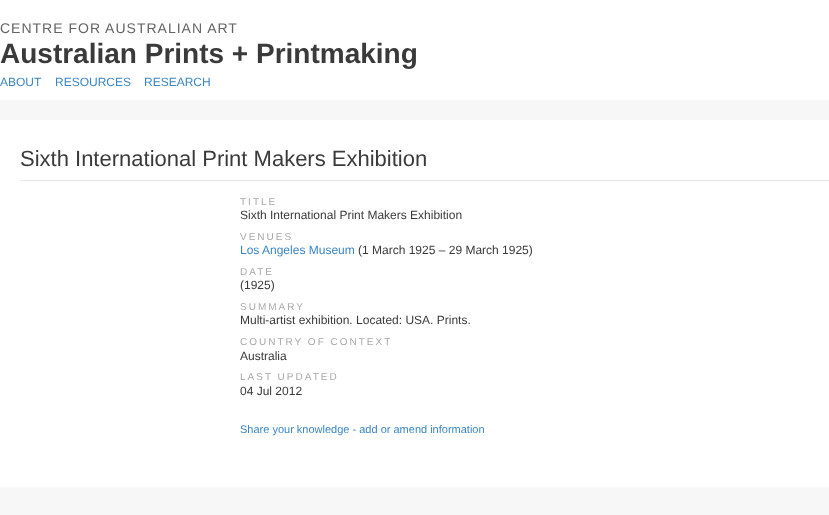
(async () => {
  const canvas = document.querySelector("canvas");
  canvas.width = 829;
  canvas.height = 515;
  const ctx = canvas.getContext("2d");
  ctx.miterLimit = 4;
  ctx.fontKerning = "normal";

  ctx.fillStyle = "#f7f7f7";
  ctx.fillRect(0, 0, 829, 515);
  for (const [x, y, w, h, color] of [
    [0, 0, 829, 100, "#ffffff"],
    [0, 120, 829, 367, "#ffffff"],
    [20, 180, 809, 1, "#e6e6e6"],
  ]) {
    ctx.fillStyle = color;
    ctx.fillRect(x, y, w, h);
  }
  ctx.letterSpacing = "1px";
  ctx.font = "14px Liberation Sans";
  ctx.fillStyle = "#636363";
  ctx.fillText("CENTRE FOR AUSTRALIAN ART", 0, 33);
  ctx.letterSpacing = "0px";
  ctx.font = "bold 28px Liberation Sans";
  ctx.fillStyle = "#3a3a3a";
  ctx.fillText("Australian Prints + Printmaking", 0, 63);
  ctx.font = "12px Liberation Sans";
  ctx.fillStyle = "#3c86c5";
  for (const [text, x, y] of [
    ["ABOUT", 0, 86],
    ["RESOURCES", 55, 86],
    ["RESEARCH", 144, 86],
  ]) {
    ctx.fillText(text, x, y);
  }
  ctx.font = "22px Liberation Sans";
  ctx.fillStyle = "#3a3a3a";
  ctx.fillText("Sixth International Print Makers Exhibition", 20, 166);
  ctx.letterSpacing = "2px";
  ctx.font = "10px Liberation Sans";
  ctx.fillStyle = "#a8a8a8";
  ctx.fillText("TITLE", 240, 205);
  ctx.letterSpacing = "0px";
  ctx.font = "12px Liberation Sans";
  ctx.fillStyle = "#3a3a3a";
  ctx.fillText("Sixth International Print Makers Exhibition", 240, 219);
  ctx.letterSpacing = "2px";
  ctx.font = "10px Liberation Sans";
  ctx.fillStyle = "#a8a8a8";
  ctx.fillText("VENUES", 240, 240);
  ctx.letterSpacing = "0px";
  ctx.font = "12px Liberation Sans";
  ctx.fillStyle = "#3c86c5";
  ctx.fillText("Los Angeles Museum", 240, 254);
  ctx.fillStyle = "#3a3a3a";
  ctx.fillText("(1 March 1925 – 29 March 1925)", 358, 254);
  ctx.letterSpacing = "2px";
  ctx.font = "10px Liberation Sans";
  ctx.fillStyle = "#a8a8a8";
  ctx.fillText("DATE", 240, 275);
  ctx.letterSpacing = "0px";
  ctx.font = "12px Liberation Sans";
  ctx.fillStyle = "#3a3a3a";
  ctx.fillText("(1925)", 240, 289);
  ctx.letterSpacing = "2px";
  ctx.font = "10px Liberation Sans";
  ctx.fillStyle = "#a8a8a8";
  ctx.fillText("SUMMARY", 240, 310);
  ctx.letterSpacing = "0px";
  ctx.font = "12px Liberation Sans";
  ctx.fillStyle = "#3a3a3a";
  ctx.fillText("Multi-artist exhibition. Located: USA. Prints.", 240, 324);
  ctx.letterSpacing = "2px";
  ctx.font = "10px Liberation Sans";
  ctx.fillStyle = "#a8a8a8";
  ctx.fillText("COUNTRY OF CONTEXT", 240, 345);
  ctx.letterSpacing = "0px";
  ctx.font = "12px Liberation Sans";
  ctx.fillStyle = "#3a3a3a";
  ctx.fillText("Australia", 240, 360);
  ctx.letterSpacing = "2px";
  ctx.font = "10px Liberation Sans";
  ctx.fillStyle = "#a8a8a8";
  ctx.fillText("LAST UPDATED", 240, 380);
  ctx.letterSpacing = "0px";
  ctx.font = "12px Liberation Sans";
  ctx.fillStyle = "#3a3a3a";
  ctx.fillText("04 Jul 2012", 240, 395);
  ctx.font = "11px Liberation Sans";
  ctx.fillStyle = "#3c86c5";
  ctx.fillText("Share your knowledge - add or amend information", 240, 433);
})();
